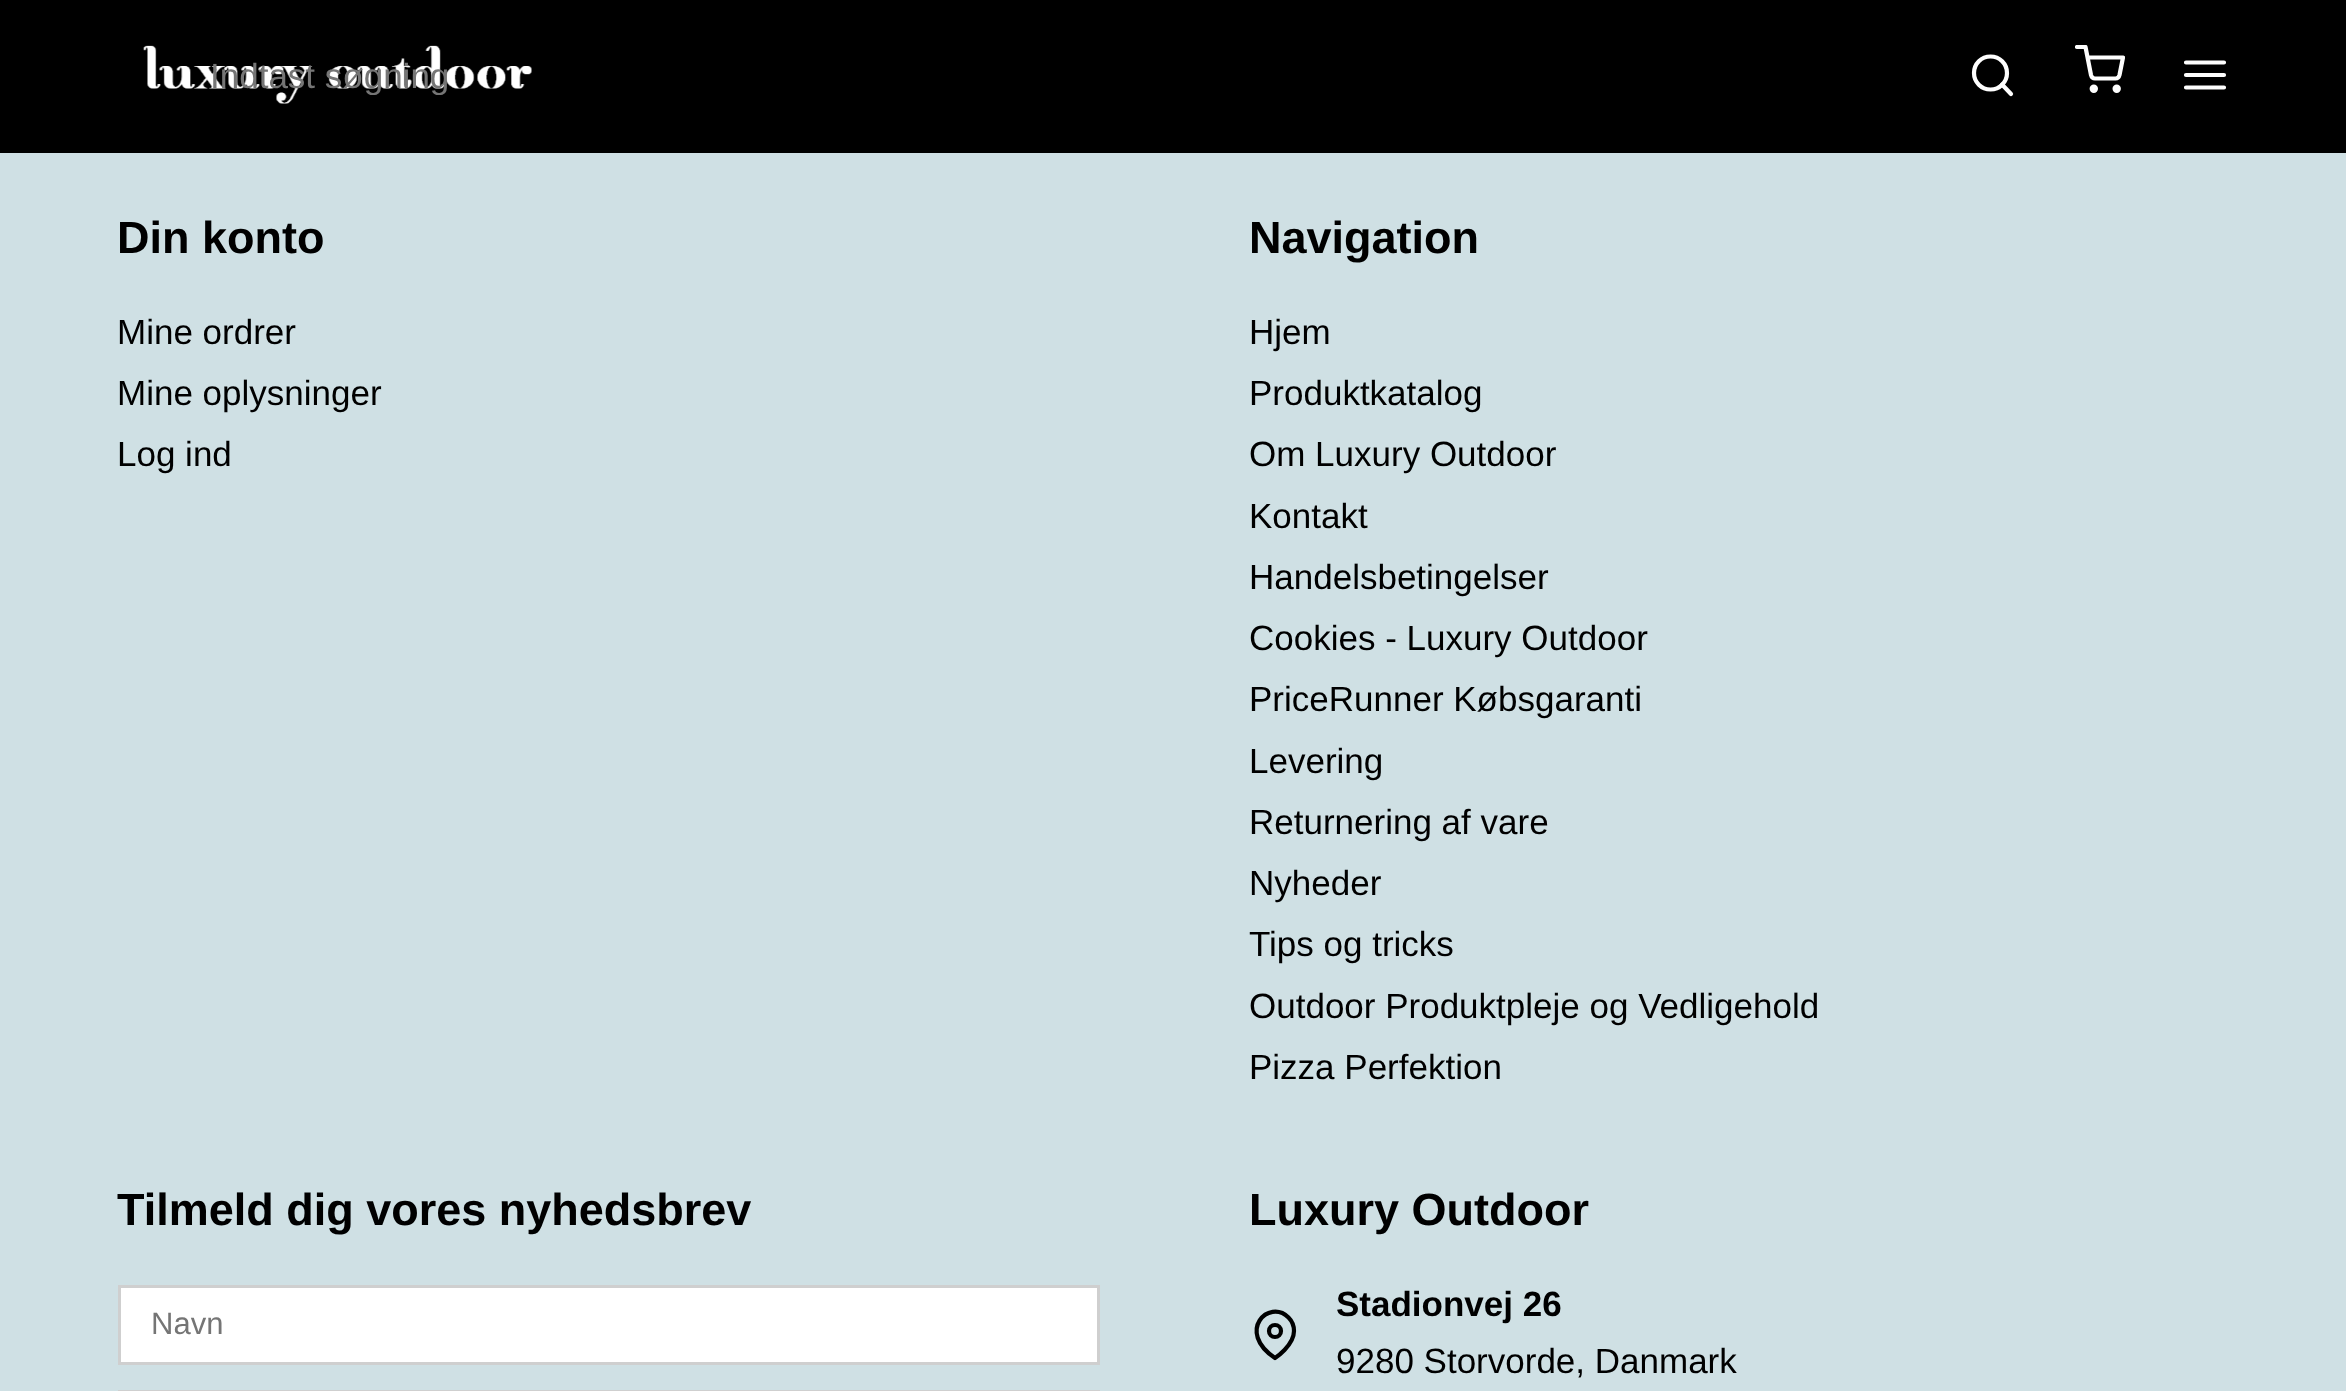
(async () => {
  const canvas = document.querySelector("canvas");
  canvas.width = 2346;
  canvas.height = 1391;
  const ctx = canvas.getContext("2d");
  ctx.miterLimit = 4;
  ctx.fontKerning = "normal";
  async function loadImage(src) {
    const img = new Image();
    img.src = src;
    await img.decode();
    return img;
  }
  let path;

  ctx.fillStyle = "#cfe0e4";
  ctx.fillRect(0, 0, 2346, 1391);
  ctx.fillStyle = "#000000";
  ctx.fillRect(0, 0, 2346, 153);
  ctx.drawImage(await loadImage("img/1.png"), 143, 45, 389, 59);
  ctx.beginPath();
  ctx.arc(1990.5, 73, 16.5, 0, Math.PI * 2);
  ctx.strokeStyle = "#fefefe";
  ctx.lineWidth = 4.2;
  ctx.stroke();
  path = new Path2D("M2011 94L2002 84.5");
  ctx.lineCap = "round";
  ctx.lineJoin = "round";
  ctx.stroke(path);
  ctx.save();
  ctx.beginPath();
  ctx.rect(2075, 45, 50, 50);
  ctx.clip();
  path = new Path2D("M2077 47H2085.5L2091 75C2091.5 77 2093 78.5 2095 78.5H2115.5C2117.5 78.5 2119 77 2119.5 75L2123 57.5H2087.5");
  ctx.stroke(path);
  ctx.restore();
  ctx.beginPath();
  ctx.arc(2093.8, 88.8, 2.1, 0, Math.PI * 2);
  ctx.stroke();
  ctx.beginPath();
  ctx.arc(2116.7, 88.8, 2.1, 0, Math.PI * 2);
  ctx.stroke();
  path = new Path2D("M2186 75H2224M2186 62.5H2224M2186 87.5H2224");
  ctx.stroke(path);
  ctx.fillStyle = "#ffffff";
  ctx.beginPath();
  ctx.rect(119.5, 1286.5, 979, 77);
  ctx.fill();
  ctx.strokeStyle = "#cfcfcf";
  ctx.lineWidth = 3;
  ctx.lineJoin = "miter";
  ctx.stroke();
  ctx.strokeRect(119.5, 1391.5, 979, 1);
  path = new Path2D("M1294 1331C1294 1345.5 1275 1358 1275 1358C1235.5 1331.5 1269 1298 1288.5 1317.5C1292 1321 1294 1326 1294 1331Z");
  ctx.strokeStyle = "#000000";
  ctx.lineWidth = 4.2;
  ctx.lineJoin = "round";
  ctx.stroke(path);
  ctx.beginPath();
  ctx.arc(1275, 1331, 6, 0, Math.PI * 2);
  ctx.stroke();
  ctx.save();
  ctx.beginPath();
  ctx.rect(210, 55, 1965, 40);
  ctx.clip();
  ctx.font = "35px Liberation Sans";
  ctx.fillStyle = "#757575";
  ctx.fillText("Indtast søgning", 210, 88);
  ctx.restore();
  ctx.font = "bold 45px Liberation Sans";
  ctx.fillStyle = "#000000";
  ctx.fillText("Din konto", 117, 253);
  ctx.font = "35px Liberation Sans";
  for (const [text, x, y] of [
    ["Mine ordrer", 117, 344],
    ["Mine oplysninger", 117, 405],
    ["Log ind", 117, 466],
  ]) {
    ctx.fillText(text, x, y);
  }
  ctx.font = "bold 45px Liberation Sans";
  ctx.fillText("Navigation", 1249, 253);
  ctx.font = "35px Liberation Sans";
  for (const [text, x, y] of [
    ["Hjem", 1249, 344],
    ["Produktkatalog", 1249, 405],
    ["Om Luxury Outdoor", 1249, 466],
    ["Kontakt", 1249, 528],
    ["Handelsbetingelser", 1249, 589],
    ["Cookies - Luxury Outdoor", 1249, 650],
    ["PriceRunner Købsgaranti", 1249, 711],
    ["Levering", 1249, 773],
    ["Returnering af vare", 1249, 834],
    ["Nyheder", 1249, 895],
    ["Tips og tricks", 1249, 956],
    ["Outdoor Produktpleje og Vedligehold", 1249, 1018],
    ["Pizza Perfektion", 1249, 1079],
  ]) {
    ctx.fillText(text, x, y);
  }
  ctx.font = "bold 45px Liberation Sans";
  ctx.fillText("Tilmeld dig vores nyhedsbrev", 117, 1225);
  ctx.font = "31px Liberation Sans";
  ctx.fillStyle = "#757575";
  ctx.fillText("Navn", 151, 1334);
  ctx.font = "bold 45px Liberation Sans";
  ctx.fillStyle = "#000000";
  ctx.fillText("Luxury Outdoor", 1249, 1225);
  ctx.font = "bold 35px Liberation Sans";
  ctx.fillText("Stadionvej 26", 1336, 1316);
  ctx.font = "35px Liberation Sans";
  ctx.fillText("9280 Storvorde, Danmark", 1336, 1373);
})();
